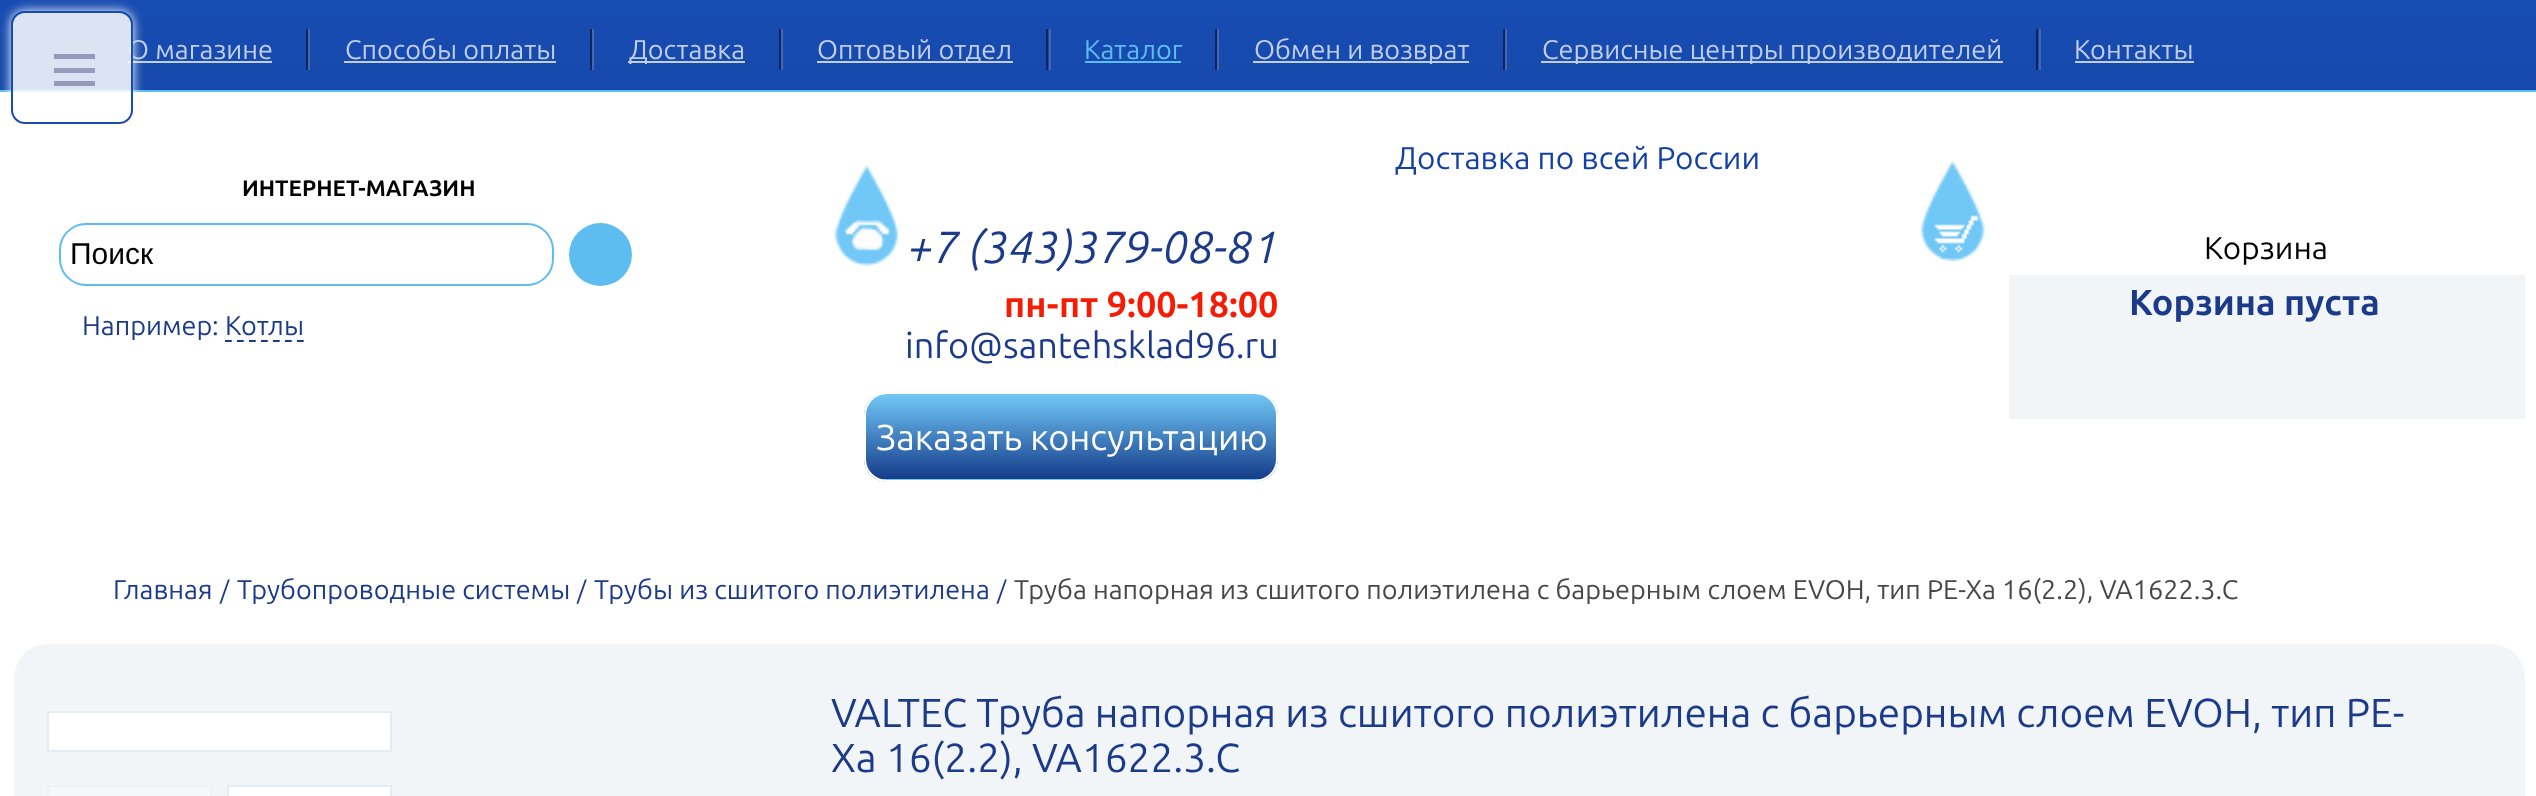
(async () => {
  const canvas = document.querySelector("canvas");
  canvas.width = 2536;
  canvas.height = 796;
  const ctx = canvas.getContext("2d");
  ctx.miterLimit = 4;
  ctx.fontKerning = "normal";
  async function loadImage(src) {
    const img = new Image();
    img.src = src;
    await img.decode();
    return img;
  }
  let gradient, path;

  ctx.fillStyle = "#ffffff";
  ctx.fillRect(0, 0, 2536, 796);
  gradient = ctx.createLinearGradient(0, 0, 0, 536);
  gradient.addColorStop(0, "#174cb2");
  gradient.addColorStop(1, "#153c89");
  ctx.fillStyle = gradient;
  ctx.fillRect(0, 0, 2536, 90);
  for (const [x, y, w, h, color] of [
    [306, 29, 2, 41, "#092660"],
    [128, 61, 144, 2, "#c1cee9"],
    [590, 29, 2, 41, "#092660"],
    [308, 29, 2, 41, "#4467af"],
    [344, 61, 212, 2, "#c1cee9"],
    [779, 29, 2, 41, "#092660"],
    [592, 29, 2, 41, "#4467af"],
    [628, 61, 117, 2, "#c1cee9"],
    [1046, 29, 2, 41, "#092660"],
    [781, 29, 2, 41, "#4467af"],
    [817, 61, 196, 2, "#c1cee9"],
    [1215, 29, 2, 41, "#092660"],
    [1049, 29, 2, 41, "#4467af"],
    [1085, 61, 96, 2, "#5dbcf2"],
    [1503, 29, 2, 41, "#092660"],
    [1217, 29, 2, 41, "#4467af"],
    [1253, 61, 216, 2, "#c1cee9"],
    [2036, 29, 2, 41, "#092660"],
    [1505, 29, 2, 41, "#4467af"],
    [1541, 61, 462, 2, "#c1cee9"],
    [2039, 29, 2, 41, "#4467af"],
    [2075, 61, 119, 2, "#c1cee9"],
    [0, 90, 2536, 2, "#5dbdf0"],
  ]) {
    ctx.fillStyle = color;
    ctx.fillRect(x, y, w, h);
  }
  ctx.beginPath();
  ctx.roundRect(60, 224, 493, 61, 26);
  ctx.strokeStyle = "#5dbdf0";
  ctx.lineWidth = 2;
  ctx.stroke();
  ctx.beginPath();
  ctx.arc(600.5, 254.5, 31.5, 0, Math.PI * 2);
  ctx.fill();
  ctx.drawImage(await loadImage("img/1.png"), 834, 164, 64, 102);
  ctx.save();
  ctx.beginPath();
  ctx.roundRect(864, 392, 414, 90, 23);
  ctx.clip();
  gradient = ctx.createLinearGradient(866, 394, 866, 479);
  gradient.addColorStop(0, "#71c8f7");
  gradient.addColorStop(1, "#153c8a");
  ctx.fillStyle = gradient;
  ctx.fillRect(864, 394, 414, 85);
  gradient = ctx.createLinearGradient(866, 479, 866, 565);
  gradient.addColorStop(0, "#71c8f7");
  gradient.addColorStop(1, "#153c8a");
  ctx.fillStyle = gradient;
  ctx.fillRect(875, 479, 392, 3);
  ctx.restore();
  ctx.beginPath();
  ctx.roundRect(865, 393, 412, 88, 22);
  ctx.strokeStyle = "#ffffff";
  ctx.stroke();
  ctx.drawImage(await loadImage("img/2.png"), 1921, 160, 64, 101);
  ctx.fillStyle = "#f1f5f8";
  ctx.fillRect(2009, 275, 516, 144);
  ctx.save();
  path = new Path2D("M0 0H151V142H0ZM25 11H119C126.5 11 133 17.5 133 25V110C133 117.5 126.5 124 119 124H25C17.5 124 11 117.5 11 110V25C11 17.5 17.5 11 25 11Z");
  ctx.clip(path, "evenodd");
  ctx.fillStyle = "#ffffff";
  ctx.filter = "blur(5.5px)";
  ctx.beginPath();
  ctx.roundRect(11, 11, 122, 113, 14);
  ctx.fill();
  ctx.filter = "none";
  ctx.restore();
  ctx.beginPath();
  ctx.roundRect(14, 644, 2511, 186, 34);
  ctx.fill();
  ctx.fillStyle = "#ffffff";
  ctx.beginPath();
  ctx.rect(48, 712, 343, 39);
  ctx.fill();
  ctx.strokeStyle = "#e4ebf1";
  ctx.stroke();
  ctx.fillStyle = "#f5f8fa";
  ctx.beginPath();
  ctx.rect(48, 786, 163, 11);
  ctx.fill();
  ctx.strokeStyle = "#edf2f6";
  ctx.stroke();
  ctx.fillStyle = "#ffffff";
  ctx.beginPath();
  ctx.rect(228, 786, 163, 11);
  ctx.fill();
  ctx.strokeStyle = "#e4ebf1";
  ctx.stroke();
  ctx.font = "27px Ubuntu";
  ctx.fillStyle = "#c1cee9";
  for (const [text, x, y] of [
    ["О магазине", 128, 59],
    ["Способы оплаты", 345, 59],
    ["Доставка", 629, 59],
    ["Оптовый отдел", 817, 59],
  ]) {
    ctx.fillText(text, x, y);
  }
  ctx.fillStyle = "#5dbcf2";
  ctx.fillText("Каталог", 1084, 59);
  ctx.fillStyle = "#c1cee9";
  for (const [text, x, y] of [
    ["Обмен и возврат", 1254, 59],
    ["Сервисные центры производителей", 1542, 59],
    ["Контакты", 2074, 59],
  ]) {
    ctx.fillText(text, x, y);
  }
  ctx.font = "31.5px Ubuntu";
  ctx.fillStyle = "#1240a7";
  ctx.fillText("Доставка по всей России", 1395, 169);
  ctx.font = "bold 22.5px Ubuntu";
  ctx.fillStyle = "#000000";
  ctx.fillText("ИНТЕРНЕТ-МАГАЗИН", 242, 196);
  ctx.font = "30px Liberation Sans";
  ctx.fillText("Поиск", 70, 264);
  ctx.font = "27px Ubuntu";
  ctx.fillStyle = "#1b3b8a";
  ctx.fillText("Например: Котлы", 82, 335);
  ctx.save();
  ctx.beginPath();
  ctx.rect(59, 223, 765, 119);
  ctx.clip();
  path = new Path2D("M225 341H304");
  ctx.strokeStyle = "#18398a";
  ctx.lineWidth = 2.2;
  ctx.setLineDash([6.75, 5.24]);
  ctx.stroke(path);
  ctx.restore();
  ctx.font = "italic 45px Ubuntu";
  ctx.fillText("+7 (343)379-08-81", 908, 263);
  ctx.font = "bold 36px Ubuntu";
  ctx.fillStyle = "#f51c06";
  ctx.fillText("пн-пт 9:00-18:00", 1004, 317);
  ctx.font = "36px Ubuntu";
  ctx.fillStyle = "#1b3b8a";
  ctx.fillText("info@santehsklad96.ru", 905, 358);
  ctx.fillStyle = "#ffffff";
  ctx.fillText("Заказать консультацию", 876, 450);
  ctx.font = "31.5px Ubuntu";
  ctx.fillStyle = "#000000";
  ctx.fillText("Корзина", 2204, 259);
  ctx.font = "bold 36px Ubuntu";
  ctx.fillStyle = "#1b3b8a";
  ctx.fillText("Корзина пуста", 2129, 315);
  ctx.fillStyle = "rgba(255, 255, 255, 0.85)";
  ctx.beginPath();
  ctx.roundRect(12, 12, 120, 111, 13);
  ctx.fill();
  ctx.strokeStyle = "#174cb2";
  ctx.stroke();
  for (const [x, y, w, h, color] of [
    [54, 81, 41, 5, "#959abc"],
    [54, 68, 41, 5, "#979cbe"],
    [54, 54, 41, 5, "#959abc"],
  ]) {
    ctx.fillStyle = color;
    ctx.fillRect(x, y, w, h);
  }
  ctx.font = "27px Ubuntu";
  ctx.fillStyle = "#1b3b8a";
  ctx.fillText("Главная", 113, 599);
  ctx.font = "25px Ubuntu";
  ctx.fillText("/", 220, 599);
  ctx.font = "27px Ubuntu";
  ctx.fillText("Трубопроводные системы", 237, 599);
  ctx.font = "25px Ubuntu";
  ctx.fillText("/", 577, 599);
  ctx.font = "27px Ubuntu";
  ctx.fillText("Трубы из сшитого полиэтилена", 594, 599);
  ctx.font = "25px Ubuntu";
  ctx.fillText("/", 997, 599);
  ctx.font = "27px Ubuntu";
  ctx.fillStyle = "#474747";
  ctx.fillText("Труба напорная из сшитого полиэтилена с барьерным слоем EVOH, тип PE-Xa 16(2.2), VA1622.3.C", 1014, 599);
  ctx.font = "40.5px Ubuntu";
  ctx.fillStyle = "#1b3b8a";
  ctx.fillText("VALTEC Труба напорная из сшитого полиэтилена с барьерным слоем EVOH, тип PE-", 831, 727);
  ctx.fillText("Xa 16(2.2), VA1622.3.C", 831, 772);
})();
